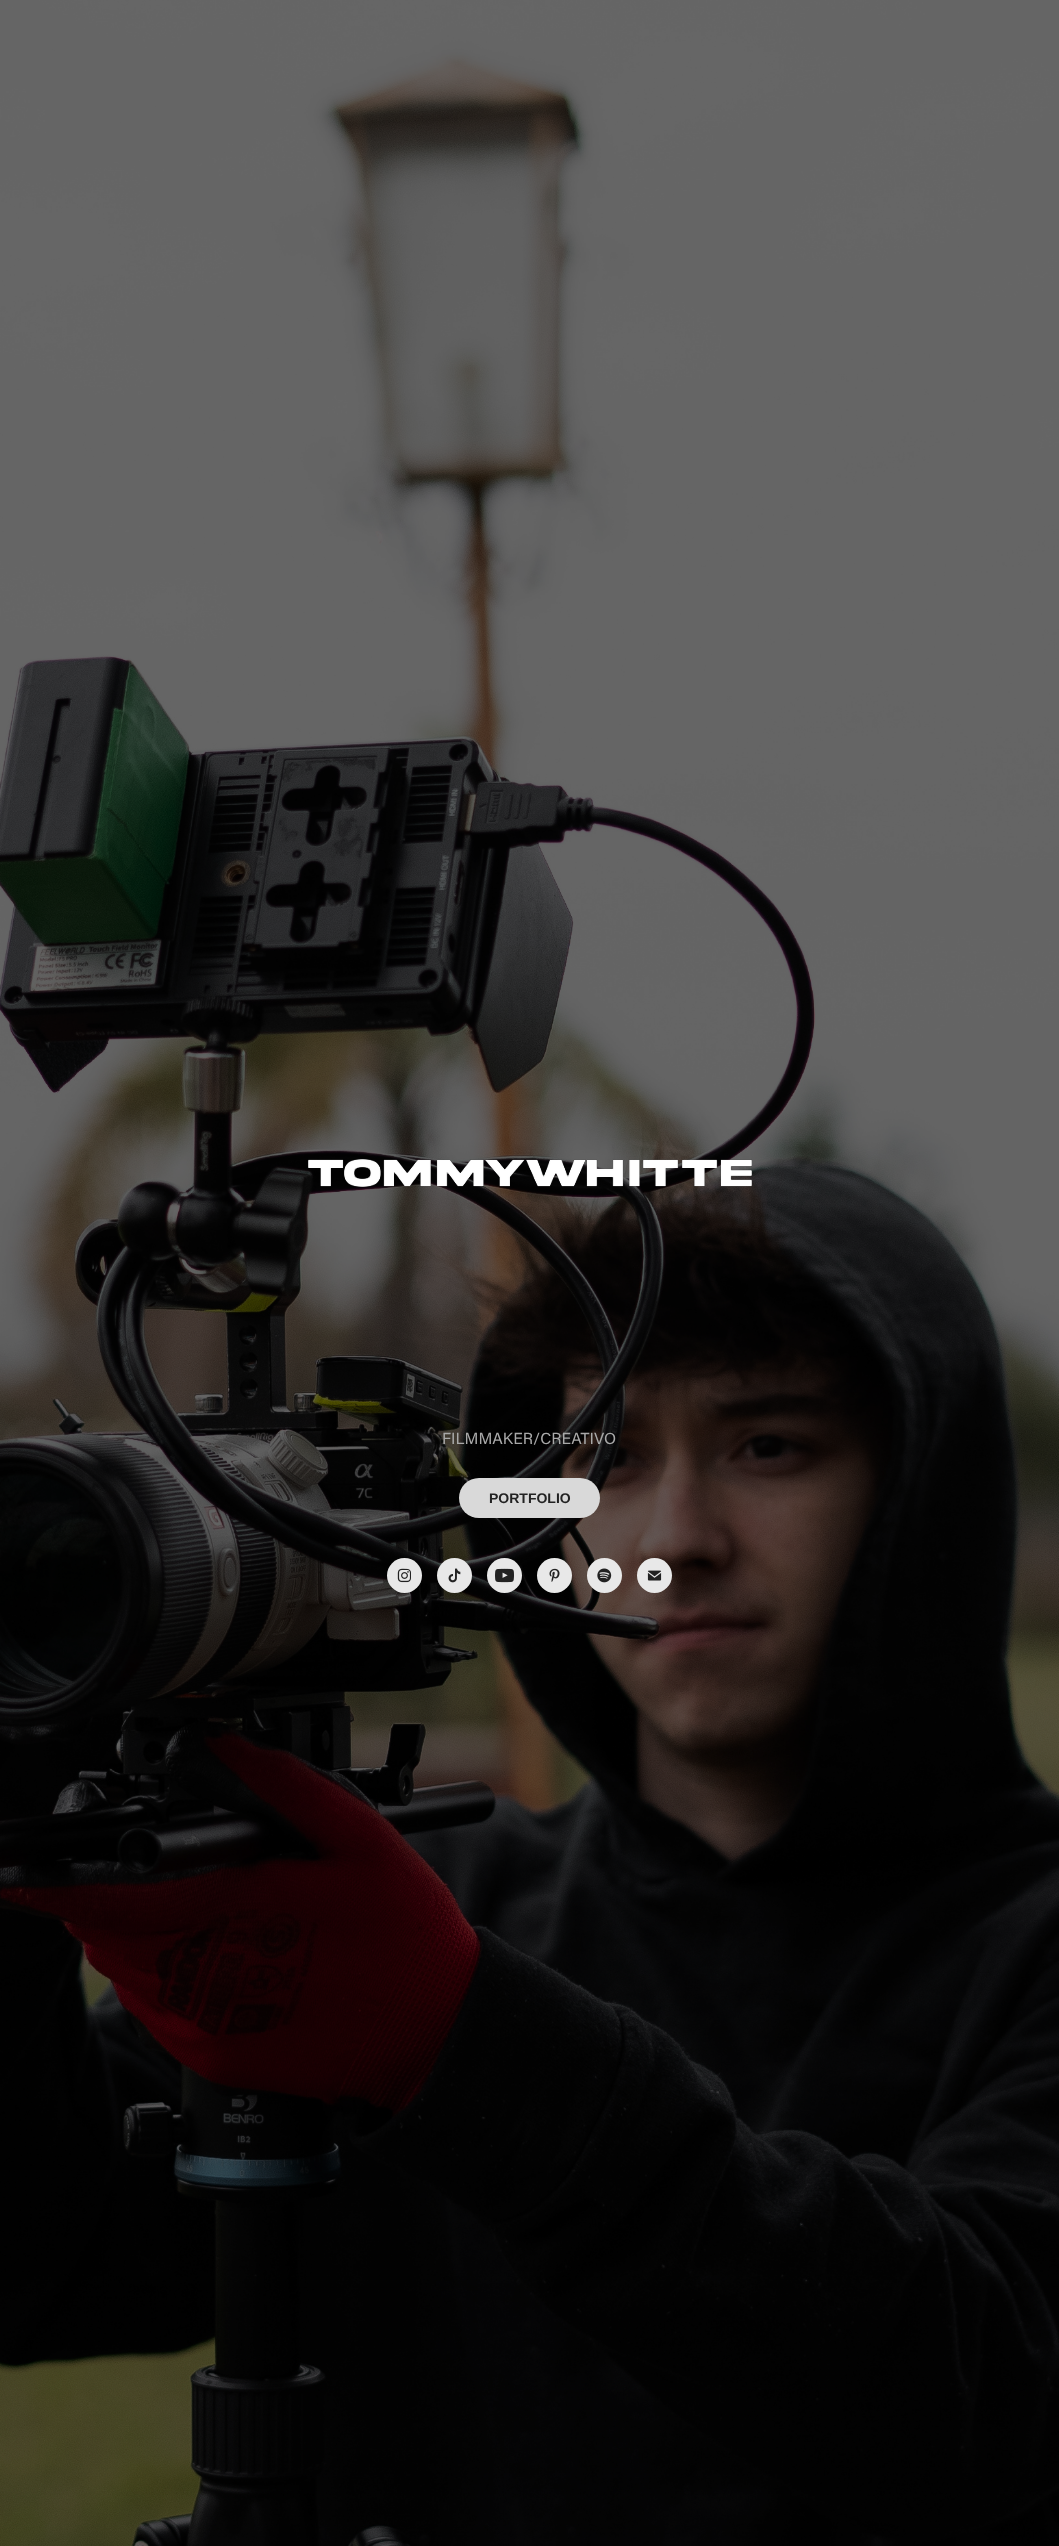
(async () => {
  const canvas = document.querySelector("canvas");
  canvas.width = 1059;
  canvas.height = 2546;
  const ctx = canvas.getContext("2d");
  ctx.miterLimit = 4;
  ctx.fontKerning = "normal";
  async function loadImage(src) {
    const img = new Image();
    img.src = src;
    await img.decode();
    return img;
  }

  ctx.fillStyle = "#ffffff";
  ctx.fillRect(0, 0, 1059, 2546);
  ctx.drawImage(await loadImage("img/1.png"), 0, 0, 1059, 2546);
  ctx.drawImage(await loadImage("img/2.png"), 308, 1159, 444, 28);
  ctx.fillStyle = "#d9d9d9";
  ctx.beginPath();
  ctx.roundRect(459, 1478, 141, 40, 20);
  ctx.fill();
  ctx.fillStyle = "#e8e8e8";
  ctx.beginPath();
  ctx.arc(404.5, 1575.5, 17.5, 0, Math.PI * 2);
  ctx.fill();
  ctx.drawImage(await loadImage("img/3.png"), 397, 1568, 14, 15);
  ctx.beginPath();
  ctx.arc(454.5, 1575.5, 17.5, 0, Math.PI * 2);
  ctx.fill();
  ctx.drawImage(await loadImage("img/4.png"), 448, 1568, 13, 15);
  ctx.beginPath();
  ctx.arc(504.5, 1575.5, 17.5, 0, Math.PI * 2);
  ctx.fill();
  ctx.drawImage(await loadImage("img/5.png"), 495, 1568, 19, 15);
  ctx.beginPath();
  ctx.arc(554.5, 1575.5, 17.5, 0, Math.PI * 2);
  ctx.fill();
  ctx.drawImage(await loadImage("img/6.png"), 549, 1568, 11, 14);
  ctx.beginPath();
  ctx.arc(604.5, 1575.5, 17.5, 0, Math.PI * 2);
  ctx.fill();
  ctx.drawImage(await loadImage("img/7.png"), 597, 1568, 15, 15);
  ctx.beginPath();
  ctx.arc(654.5, 1575.5, 17.5, 0, Math.PI * 2);
  ctx.fill();
  ctx.drawImage(await loadImage("img/8.png"), 647, 1570, 15, 11);
  ctx.font = "16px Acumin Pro";
  ctx.fillStyle = "#a9a9a9";
  ctx.fillText("FILMMAKER/CREATIVO", 442, 1444);
  ctx.font = "bold 14px Liberation Sans";
  ctx.fillStyle = "#222222";
  ctx.fillText("PORTFOLIO", 489, 1503);
})();
